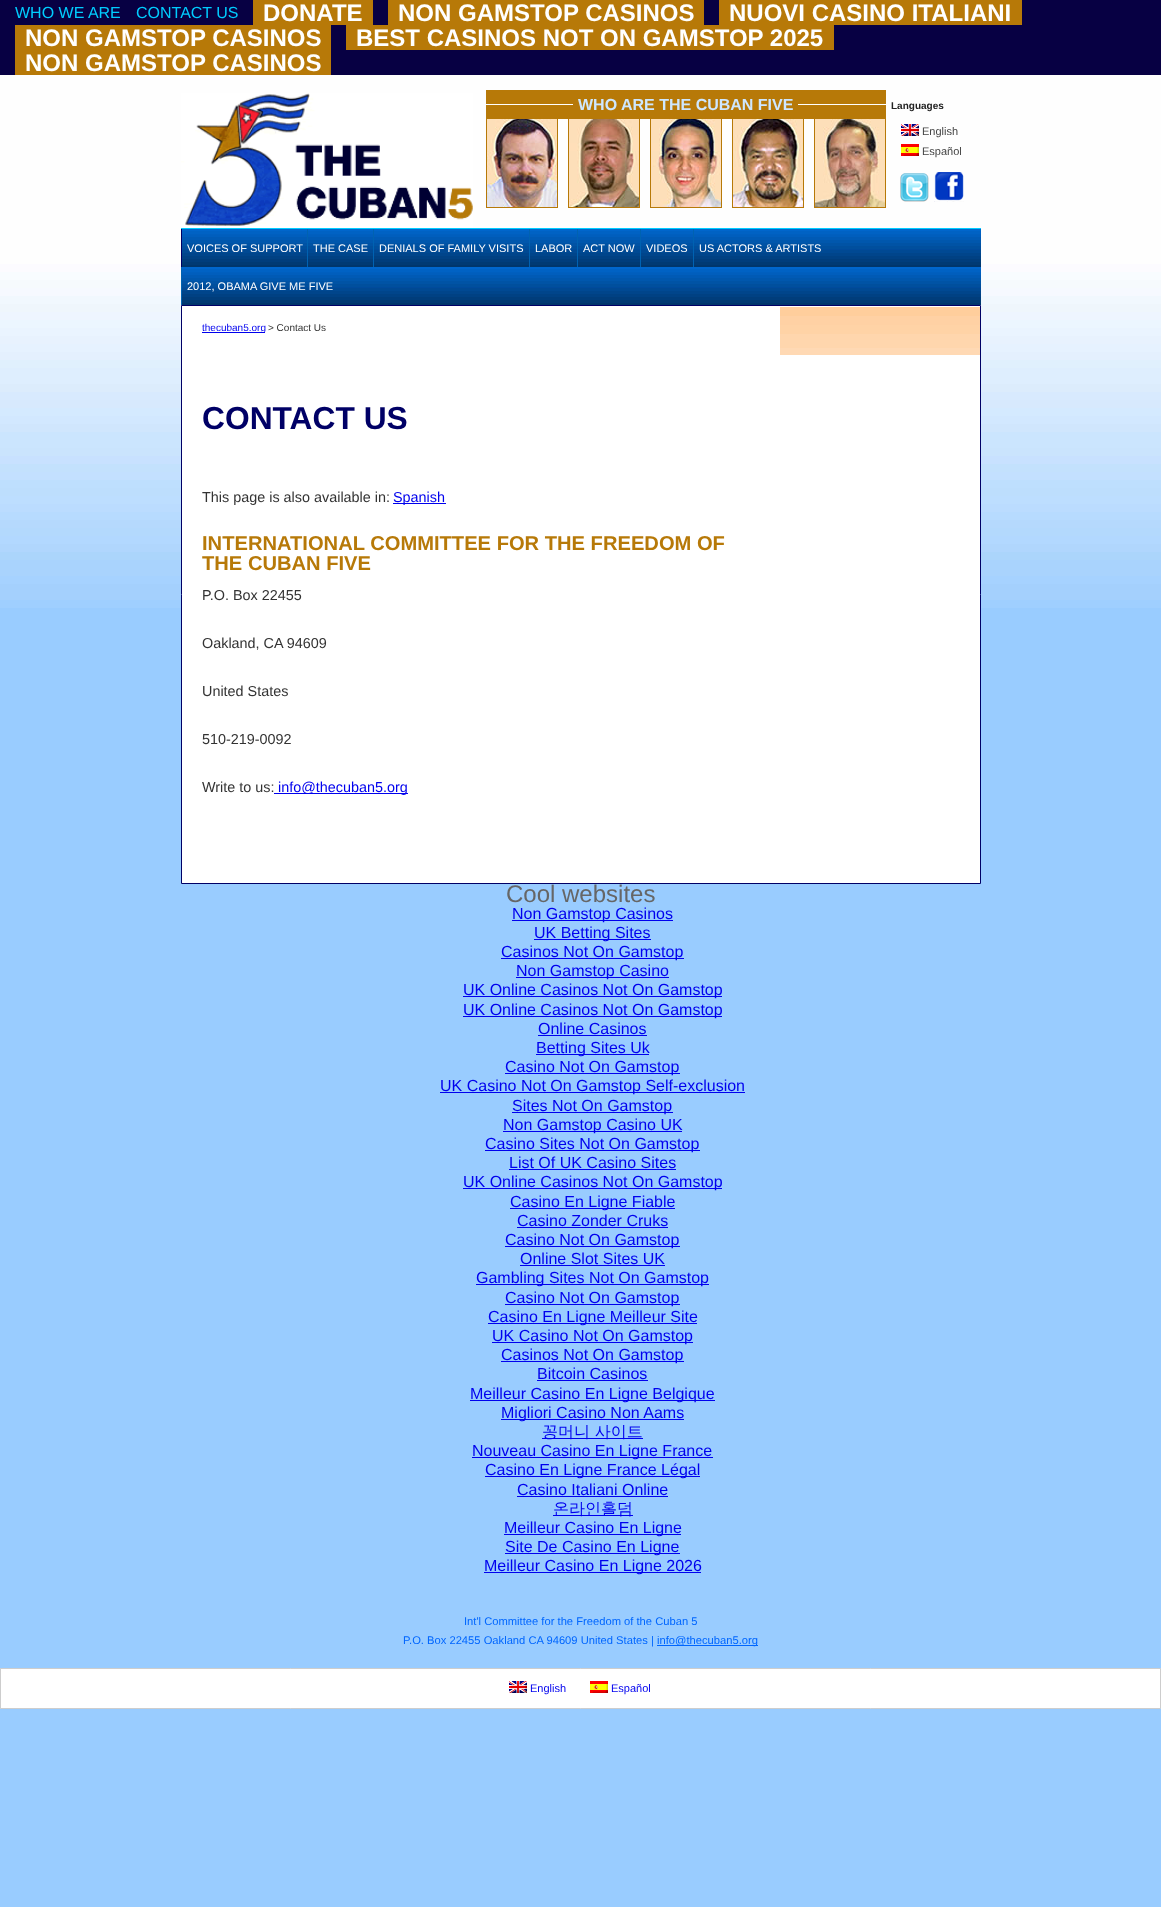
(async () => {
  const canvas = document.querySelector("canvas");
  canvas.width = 1161;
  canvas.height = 1907;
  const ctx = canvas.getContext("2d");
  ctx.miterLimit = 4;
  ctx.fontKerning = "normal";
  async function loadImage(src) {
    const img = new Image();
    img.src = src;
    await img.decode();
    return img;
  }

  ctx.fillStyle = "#99ccff";
  ctx.fillRect(0, 0, 1161, 1907);
  ctx.drawImage(await loadImage("img/1.png"), 0, 75, 1161, 533);
  for (const [x, y, w, h, color] of [
    [0, 0, 1161, 75, "#070043"],
    [253, 0, 120, 25, "#b77908"],
    [388, 0, 316, 25, "#b77908"],
    [719, 0, 303, 25, "#b77908"],
    [15, 25, 316, 50, "#b77908"],
    [346, 25, 488, 25, "#b77908"],
  ]) {
    ctx.fillStyle = color;
    ctx.fillRect(x, y, w, h);
  }
  ctx.drawImage(await loadImage("img/2.png"), 181, 93, 292, 135);
  for (const [x, y, w, h, color] of [
    [486, 90, 400, 29, "#b77908"],
    [486, 104, 400, 1, "#ffffff"],
    [573, 104, 225, 1, "#b77908"],
    [557, 119, 1, 89, "#b77908"],
    [486, 207, 72, 1, "#b77908"],
    [486, 119, 1, 89, "#b77908"],
  ]) {
    ctx.fillStyle = color;
    ctx.fillRect(x, y, w, h);
  }
  ctx.drawImage(await loadImage("img/3.png"), 487, 119, 70, 88);
  for (const [x, y, w, h, color] of [
    [639, 119, 1, 89, "#b77908"],
    [568, 207, 72, 1, "#b77908"],
    [568, 119, 1, 89, "#b77908"],
  ]) {
    ctx.fillStyle = color;
    ctx.fillRect(x, y, w, h);
  }
  ctx.drawImage(await loadImage("img/4.png"), 569, 119, 70, 88);
  for (const [x, y, w, h, color] of [
    [721, 119, 1, 89, "#b77908"],
    [650, 207, 72, 1, "#b77908"],
    [650, 119, 1, 89, "#b77908"],
  ]) {
    ctx.fillStyle = color;
    ctx.fillRect(x, y, w, h);
  }
  ctx.drawImage(await loadImage("img/5.png"), 651, 119, 70, 88);
  for (const [x, y, w, h, color] of [
    [803, 119, 1, 89, "#b77908"],
    [732, 207, 72, 1, "#b77908"],
    [732, 119, 1, 89, "#b77908"],
  ]) {
    ctx.fillStyle = color;
    ctx.fillRect(x, y, w, h);
  }
  ctx.drawImage(await loadImage("img/6.png"), 733, 119, 70, 88);
  for (const [x, y, w, h, color] of [
    [885, 119, 1, 89, "#b77908"],
    [814, 207, 72, 1, "#b77908"],
    [814, 119, 1, 89, "#b77908"],
  ]) {
    ctx.fillStyle = color;
    ctx.fillRect(x, y, w, h);
  }
  ctx.drawImage(await loadImage("img/7.png"), 815, 119, 70, 88);
  ctx.drawImage(await loadImage("img/8.png"), 901, 124, 18, 12);
  ctx.drawImage(await loadImage("img/9.png"), 901, 144, 18, 12);
  ctx.drawImage(await loadImage("img/10.png"), 900, 173, 29, 29);
  ctx.drawImage(await loadImage("img/11.png"), 934, 172, 30, 30);
  ctx.drawImage(await loadImage("img/12.png"), 182, 229, 799, 76);
  for (const [x, y, w, h, color] of [
    [181, 228, 800, 1, "#00ccff"],
    [181, 229, 1, 38, "#000066"],
    [307, 229, 1, 38, "#0062b1"],
    [373, 229, 1, 38, "#0062b1"],
    [529, 229, 1, 38, "#0062b1"],
    [577, 229, 1, 38, "#0062b1"],
    [640, 229, 1, 38, "#0062b1"],
    [693, 229, 1, 38, "#0062b1"],
    [181, 267, 1, 38, "#0062b1"],
  ]) {
    ctx.fillStyle = color;
    ctx.fillRect(x, y, w, h);
  }
  ctx.fillStyle = "#ffffff";
  ctx.beginPath();
  ctx.rect(181.5, 305.5, 799, 578);
  ctx.fill();
  ctx.strokeStyle = "#000066";
  ctx.stroke();
  for (const [x, y, w, h, color] of [
    [202, 332, 63, 1, "#0000ee"],
    [393, 503, 53, 1, "#0000ee"],
    [274, 793, 134, 1, "#0000ee"],
  ]) {
    ctx.fillStyle = color;
    ctx.fillRect(x, y, w, h);
  }
  ctx.drawImage(await loadImage("img/13.png"), 780, 307, 200, 48);
  for (const [x, y, w, h, color] of [
    [512, 920, 161, 1, "#0000ee"],
    [534, 939, 117, 1, "#0000ee"],
    [501, 958, 183, 1, "#0000ee"],
    [516, 977, 153, 1, "#0000ee"],
    [463, 996, 259, 1, "#0000ee"],
    [463, 1016, 259, 1, "#0000ee"],
    [538, 1035, 109, 1, "#0000ee"],
    [536, 1054, 113, 1, "#0000ee"],
    [505, 1073, 175, 1, "#0000ee"],
    [440, 1092, 305, 1, "#0000ee"],
    [512, 1112, 161, 1, "#0000ee"],
    [503, 1131, 179, 1, "#0000ee"],
    [485, 1150, 215, 1, "#0000ee"],
    [509, 1169, 167, 1, "#0000ee"],
    [463, 1188, 259, 1, "#0000ee"],
    [510, 1208, 165, 1, "#0000ee"],
    [517, 1227, 151, 1, "#0000ee"],
    [505, 1246, 175, 1, "#0000ee"],
    [520, 1265, 145, 1, "#0000ee"],
    [476, 1284, 233, 1, "#0000ee"],
    [505, 1304, 175, 1, "#0000ee"],
    [488, 1323, 209, 1, "#0000ee"],
    [492, 1342, 201, 1, "#0000ee"],
    [501, 1361, 183, 1, "#0000ee"],
    [537, 1380, 111, 1, "#0000ee"],
    [470, 1400, 245, 1, "#0000ee"],
    [501, 1419, 183, 1, "#0000ee"],
    [542, 1438, 101, 1, "#0000ee"],
    [472, 1457, 241, 1, "#0000ee"],
    [485, 1476, 215, 1, "#0000ee"],
    [517, 1496, 151, 1, "#0000ee"],
    [553, 1515, 80, 1, "#0000ee"],
    [504, 1534, 177, 1, "#0000ee"],
    [505, 1553, 175, 1, "#0000ee"],
    [484, 1572, 217, 1, "#0000ee"],
    [657, 1645, 101, 1, "#0066ff"],
  ]) {
    ctx.fillStyle = color;
    ctx.fillRect(x, y, w, h);
  }
  ctx.fillStyle = "#ffffff";
  ctx.beginPath();
  ctx.rect(0.5, 1668.5, 1160, 40);
  ctx.fill();
  ctx.strokeStyle = "#cdcdcd";
  ctx.stroke();
  ctx.drawImage(await loadImage("img/8.png"), 509, 1681, 18, 12);
  ctx.drawImage(await loadImage("img/9.png"), 590, 1681, 18, 12);
  ctx.font = "16px Liberation Sans";
  ctx.fillStyle = "#00ccff";
  ctx.fillText("WHO WE ARE", 15, 18);
  ctx.fillText("CONTACT US", 136, 18);
  ctx.font = "bold 24px Liberation Sans";
  ctx.fillStyle = "#ffffff";
  for (const [text, x, y] of [
    ["DONATE", 263, 21],
    ["NON GAMSTOP CASINOS", 398, 21],
    ["NUOVI CASINO ITALIANI", 729, 21],
    ["NON GAMSTOP CASINOS", 25, 46],
    ["BEST CASINOS NOT ON GAMSTOP 2025", 356, 46],
    ["NON GAMSTOP CASINOS", 25, 71],
  ]) {
    ctx.fillText(text, x, y);
  }
  ctx.font = "bold 16px Liberation Sans";
  ctx.fillStyle = "#cee7ff";
  ctx.fillText("WHO ARE THE CUBAN FIVE", 578, 110);
  ctx.font = "bold 10px Liberation Sans";
  ctx.fillStyle = "#222222";
  ctx.fillText("Languages", 891, 109);
  ctx.font = "11px Liberation Sans";
  ctx.fillStyle = "#444444";
  ctx.fillText("English", 922, 135);
  ctx.fillText("Español", 922, 155);
  ctx.fillStyle = "#ffffff";
  for (const [text, x, y] of [
    ["VOICES OF SUPPORT", 187, 252],
    ["THE CASE", 313, 252],
    ["DENIALS OF FAMILY VISITS", 379, 252],
    ["LABOR", 535, 252],
    ["ACT NOW", 583, 252],
    ["VIDEOS", 646, 252],
    ["US ACTORS & ARTISTS", 699, 252],
    ["2012, OBAMA GIVE ME FIVE", 187, 290],
  ]) {
    ctx.fillText(text, x, y);
  }
  ctx.font = "10px Liberation Sans";
  ctx.fillStyle = "#0000ee";
  ctx.fillText("thecuban5.org", 202, 331);
  ctx.fillStyle = "#333333";
  ctx.fillText("> Contact Us", 268, 331);
  ctx.font = "bold 31.75px Liberation Sans";
  ctx.fillStyle = "#000066";
  ctx.fillText("CONTACT US", 202, 429);
  ctx.font = "14.4px Liberation Sans";
  ctx.fillStyle = "#333333";
  ctx.fillText("This page is also available in:", 202, 502);
  ctx.fillStyle = "#0000ee";
  ctx.fillText("Spanish", 393, 502);
  ctx.font = "bold 20.15px Liberation Sans";
  ctx.fillStyle = "#b77908";
  ctx.fillText("INTERNATIONAL COMMITTEE FOR THE FREEDOM OF", 202, 550);
  ctx.fillText("THE CUBAN FIVE", 202, 570);
  ctx.font = "14.4px Liberation Sans";
  ctx.fillStyle = "#333333";
  for (const [text, x, y] of [
    ["P.O. Box 22455", 202, 600],
    ["Oakland, CA 94609", 202, 648],
    ["United States", 202, 696],
    ["510-219-0092", 202, 744],
    ["Write to us:", 202, 792],
  ]) {
    ctx.fillText(text, x, y);
  }
  ctx.fillStyle = "#0000ee";
  ctx.fillText("info@thecuban5.org", 278, 792);
  ctx.font = "24px Liberation Sans";
  ctx.fillStyle = "#666666";
  ctx.fillText("Cool websites", 506, 902);
  ctx.font = "16px Liberation Sans";
  ctx.fillStyle = "#0000ee";
  for (const [text, x, y] of [
    ["Non Gamstop Casinos", 512, 919],
    ["UK Betting Sites", 534, 938],
    ["Casinos Not On Gamstop", 501, 957],
    ["Non Gamstop Casino", 516, 976],
    ["UK Online Casinos Not On Gamstop", 463, 995],
    ["UK Online Casinos Not On Gamstop", 463, 1015],
    ["Online Casinos", 538, 1034],
    ["Betting Sites Uk", 536, 1053],
    ["Casino Not On Gamstop", 505, 1072],
    ["UK Casino Not On Gamstop Self-exclusion", 440, 1091],
    ["Sites Not On Gamstop", 512, 1111],
    ["Non Gamstop Casino UK", 503, 1130],
    ["Casino Sites Not On Gamstop", 485, 1149],
    ["List Of UK Casino Sites", 509, 1168],
    ["UK Online Casinos Not On Gamstop", 463, 1187],
    ["Casino En Ligne Fiable", 510, 1207],
    ["Casino Zonder Cruks", 517, 1226],
    ["Casino Not On Gamstop", 505, 1245],
    ["Online Slot Sites UK", 520, 1264],
    ["Gambling Sites Not On Gamstop", 476, 1283],
    ["Casino Not On Gamstop", 505, 1303],
    ["Casino En Ligne Meilleur Site", 488, 1322],
    ["UK Casino Not On Gamstop", 492, 1341],
    ["Casinos Not On Gamstop", 501, 1360],
    ["Bitcoin Casinos", 537, 1379],
    ["Meilleur Casino En Ligne Belgique", 470, 1399],
    ["Migliori Casino Non Aams", 501, 1418],
  ]) {
    ctx.fillText(text, x, y);
  }
  ctx.font = "500 16px WenQuanYi Zen Hei";
  ctx.fillText("꽁머니 사이트", 542, 1437);
  ctx.font = "16px Liberation Sans";
  for (const [text, x, y] of [
    ["Nouveau Casino En Ligne France", 472, 1456],
    ["Casino En Ligne France Légal", 485, 1475],
    ["Casino Italiani Online", 517, 1495],
  ]) {
    ctx.fillText(text, x, y);
  }
  ctx.font = "500 16px WenQuanYi Zen Hei";
  ctx.fillText("온라인홀덤", 553, 1514);
  ctx.font = "16px Liberation Sans";
  for (const [text, x, y] of [
    ["Meilleur Casino En Ligne", 504, 1533],
    ["Site De Casino En Ligne", 505, 1552],
    ["Meilleur Casino En Ligne 2026", 484, 1571],
  ]) {
    ctx.fillText(text, x, y);
  }
  ctx.font = "11.2px Liberation Sans";
  ctx.fillStyle = "#0066ff";
  for (const [text, x, y] of [
    ["Int'l Committee for the Freedom of the Cuban 5", 464, 1625],
    ["P.O. Box 22455 Oakland CA 94609 United States |", 403, 1644],
    ["info@thecuban5.org", 657, 1644],
  ]) {
    ctx.fillText(text, x, y);
  }
  ctx.font = "11px Liberation Sans";
  ctx.fillStyle = "#0000ee";
  ctx.fillText("English", 530, 1692);
  ctx.fillText("Español", 611, 1692);
})();
